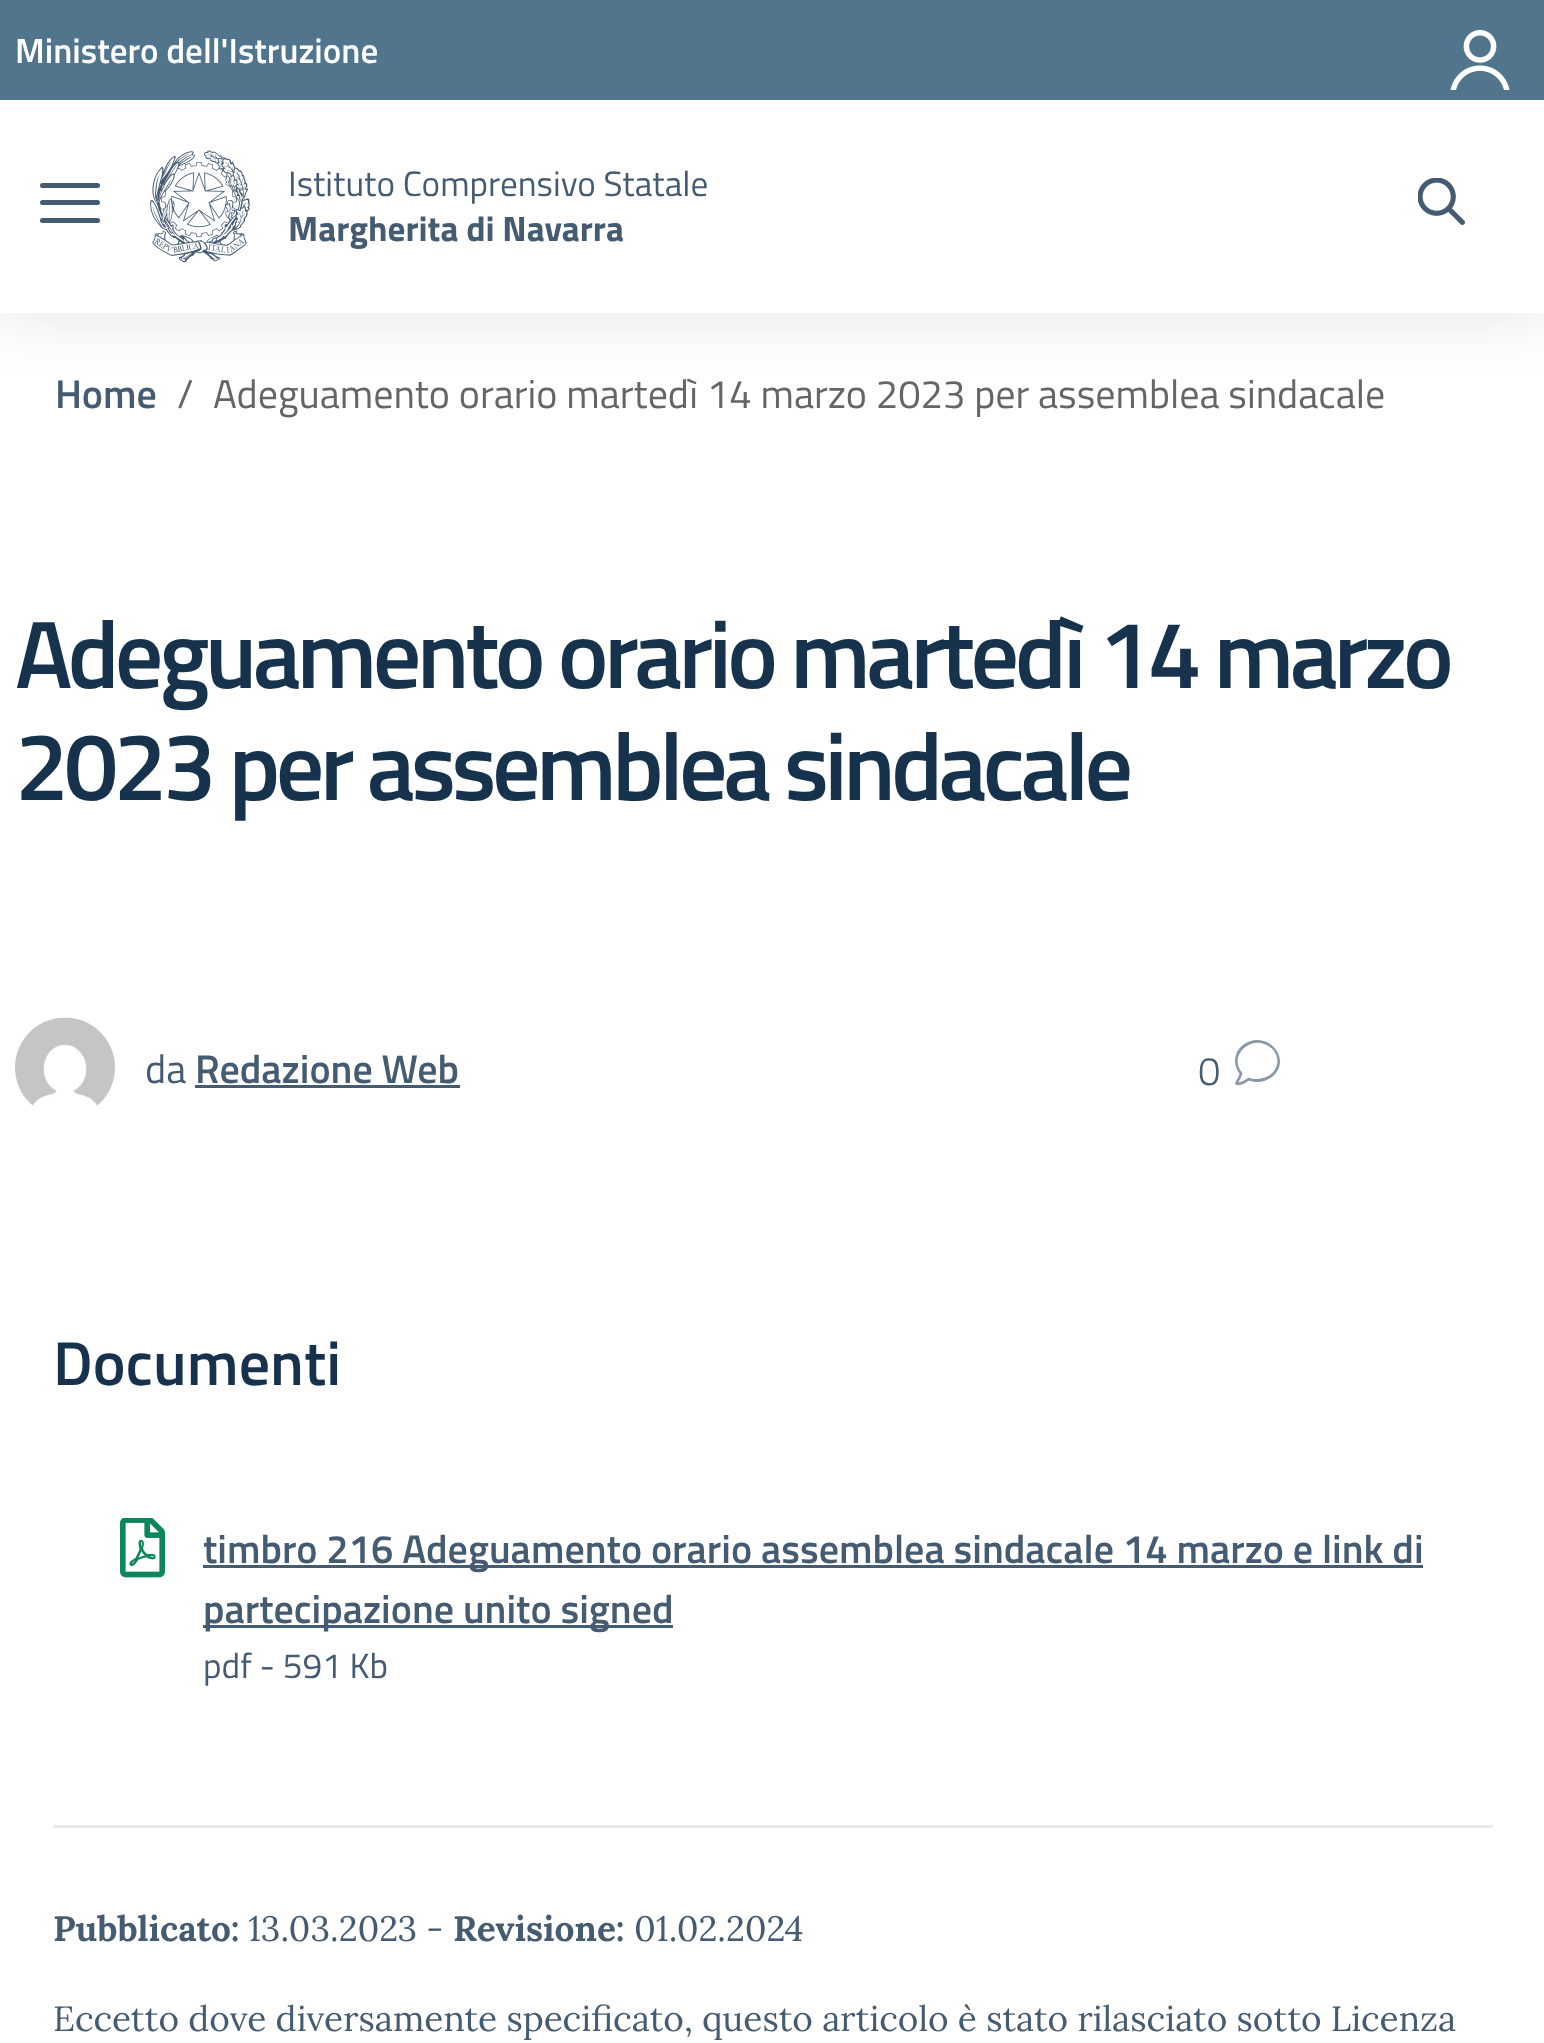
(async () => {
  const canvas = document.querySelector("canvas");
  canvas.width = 1544;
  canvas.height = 2043;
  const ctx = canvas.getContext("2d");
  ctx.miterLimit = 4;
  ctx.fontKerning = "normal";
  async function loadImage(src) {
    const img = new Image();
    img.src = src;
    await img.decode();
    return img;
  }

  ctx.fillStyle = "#ffffff";
  ctx.fillRect(0, 0, 1544, 2043);
  ctx.fillStyle = "rgba(0, 0, 0, 0.1)";
  ctx.filter = "blur(31px)";
  ctx.beginPath();
  ctx.rect(0, 5, 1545, 313);
  ctx.fill();
  ctx.filter = "none";
  ctx.fillStyle = "#ffffff";
  ctx.fillRect(0, 100, 1544, 213);
  ctx.fillStyle = "#51758d";
  ctx.fillRect(0, 0, 1544, 100);
  ctx.drawImage(await loadImage("img/1.png"), 1450, 30, 60, 60);
  ctx.fillStyle = "#455b71";
  ctx.beginPath();
  ctx.roundRect(40, 200, 60, 5, 2.5);
  ctx.fill();
  ctx.beginPath();
  ctx.roundRect(40, 183, 60, 5, 2.5);
  ctx.fill();
  ctx.beginPath();
  ctx.roundRect(40, 218, 60, 5, 2.5);
  ctx.fill();
  ctx.drawImage(await loadImage("img/2.png"), 150, 150, 100, 113);
  ctx.drawImage(await loadImage("img/3.png"), 1418, 178, 47, 47);
  ctx.drawImage(await loadImage("img/4.png"), 15, 1017, 100, 90);
  ctx.fillRect(195, 1085, 265, 3);
  ctx.drawImage(await loadImage("img/5.png"), 1235, 1040, 45, 45);
  ctx.drawImage(await loadImage("img/6.png"), 120, 1518, 45, 60);
  for (const [x, y, w, h, color] of [
    [203, 1565, 1220, 3, "#455b71"],
    [203, 1625, 470, 3, "#455b71"],
    [53, 1825, 1440, 3, "#e7eaed"],
  ]) {
    ctx.fillStyle = color;
    ctx.fillRect(x, y, w, h);
  }
  ctx.font = "600 35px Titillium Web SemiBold";
  ctx.fillStyle = "#ffffff";
  ctx.fillText("Ministero dell'Istruzione", 15, 63);
  ctx.font = "35.2px Titillium Web";
  ctx.fillStyle = "#455b71";
  ctx.fillText("Istituto Comprensivo Statale", 288, 196);
  ctx.font = "bold 35.2px Titillium Web";
  ctx.fillText("Margherita di Navarra", 288, 241);
  ctx.font = "600 40px Titillium Web SemiBold";
  ctx.fillText("Home", 55, 408);
  ctx.font = "40px Titillium Web";
  ctx.fillStyle = "#656566";
  ctx.fillText("/", 177, 408);
  ctx.fillText("Adeguamento orario martedì 14 marzo 2023 per assemblea sindacale", 213, 408);
  ctx.letterSpacing = "-4.5px";
  ctx.font = "600 96px Titillium Web SemiBold";
  ctx.fillStyle = "#17324d";
  ctx.fillText("Adeguamento orario martedì 14 marzo", 15, 688);
  ctx.fillText("2023 per assemblea sindacale", 15, 800);
  ctx.letterSpacing = "0px";
  ctx.font = "40px Titillium Web";
  ctx.fillStyle = "#455b71";
  ctx.fillText("da", 145, 1083);
  ctx.font = "600 40px Titillium Web SemiBold";
  ctx.fillText("Redazione Web", 195, 1083);
  ctx.font = "300 40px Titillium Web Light";
  ctx.fillText("0", 1198, 1085);
  ctx.font = "600 62px Titillium Web SemiBold";
  ctx.fillStyle = "#17324d";
  ctx.fillText("Documenti", 53, 1385);
  ctx.font = "600 40px Titillium Web SemiBold";
  ctx.fillStyle = "#455b71";
  ctx.fillText("timbro 216 Adeguamento orario assemblea sindacale 14 marzo e link di", 203, 1563);
  ctx.fillText("partecipazione unito signed", 203, 1623);
  ctx.font = "35.2px Titillium Web";
  ctx.fillText("pdf - 591 Kb", 203, 1678);
  ctx.font = "bold 35.2px Lora";
  ctx.fillText("Pubblicato:", 53, 1941);
  ctx.font = "35.2px Lora";
  ctx.fillText("13.03.2023 -", 248, 1941);
  ctx.font = "bold 35.2px Lora";
  ctx.fillText("Revisione:", 453, 1941);
  ctx.font = "35.2px Lora";
  ctx.fillText("01.02.2024", 634, 1941);
  ctx.fillText("Eccetto dove diversamente specificato, questo articolo è stato rilasciato sotto Licenza", 53, 2031);
})();
